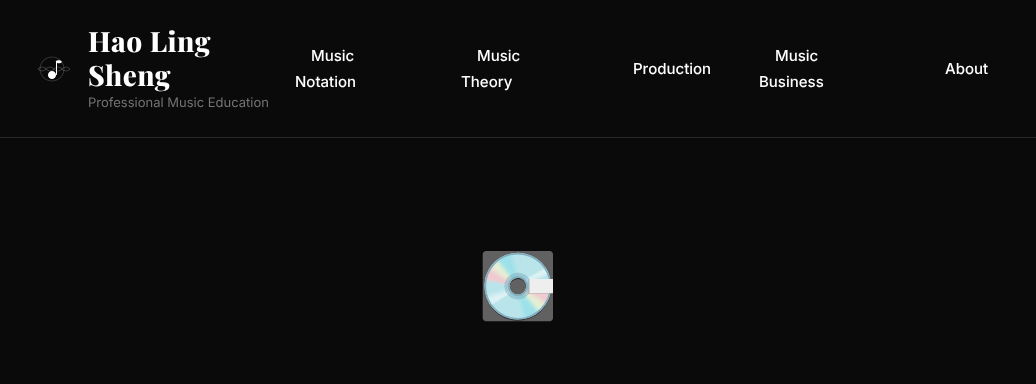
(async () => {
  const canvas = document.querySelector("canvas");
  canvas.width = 1036;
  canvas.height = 384;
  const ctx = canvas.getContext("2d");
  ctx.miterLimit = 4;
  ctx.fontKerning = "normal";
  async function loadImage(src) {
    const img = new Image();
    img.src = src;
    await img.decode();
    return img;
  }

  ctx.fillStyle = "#0a0a0a";
  ctx.fillRect(0, 0, 1036, 384);
  ctx.fillStyle = "#262626";
  ctx.fillRect(0, 137, 1036, 1);
  ctx.drawImage(await loadImage("img/1.png"), 38, 56, 32, 26);
  ctx.letterSpacing = "0.5px";
  ctx.font = "800 28px Playfair Display";
  ctx.fillStyle = "#ffffff";
  ctx.fillText("Hao Ling", 88, 52);
  ctx.fillText("Sheng", 88, 86);
  ctx.letterSpacing = "0px";
  ctx.font = "13px Inter";
  ctx.fillStyle = "#737373";
  ctx.fillText("Professional Music Education", 88, 107);
  ctx.font = "500 15px Inter";
  ctx.fillStyle = "#ffffff";
  for (const [text, x, y] of [
    ["Music", 311, 61],
    ["Notation", 295, 87],
    ["Music", 477, 61],
    ["Theory", 461, 87],
    ["Production", 633, 74],
    ["Music", 775, 61],
    ["Business", 759, 87],
    ["About", 945, 74],
  ]) {
    ctx.fillText(text, x, y);
  }
  ctx.font = "64px Noto Color Emoji";
  ctx.fillText("💽", 478, 308);
})();
